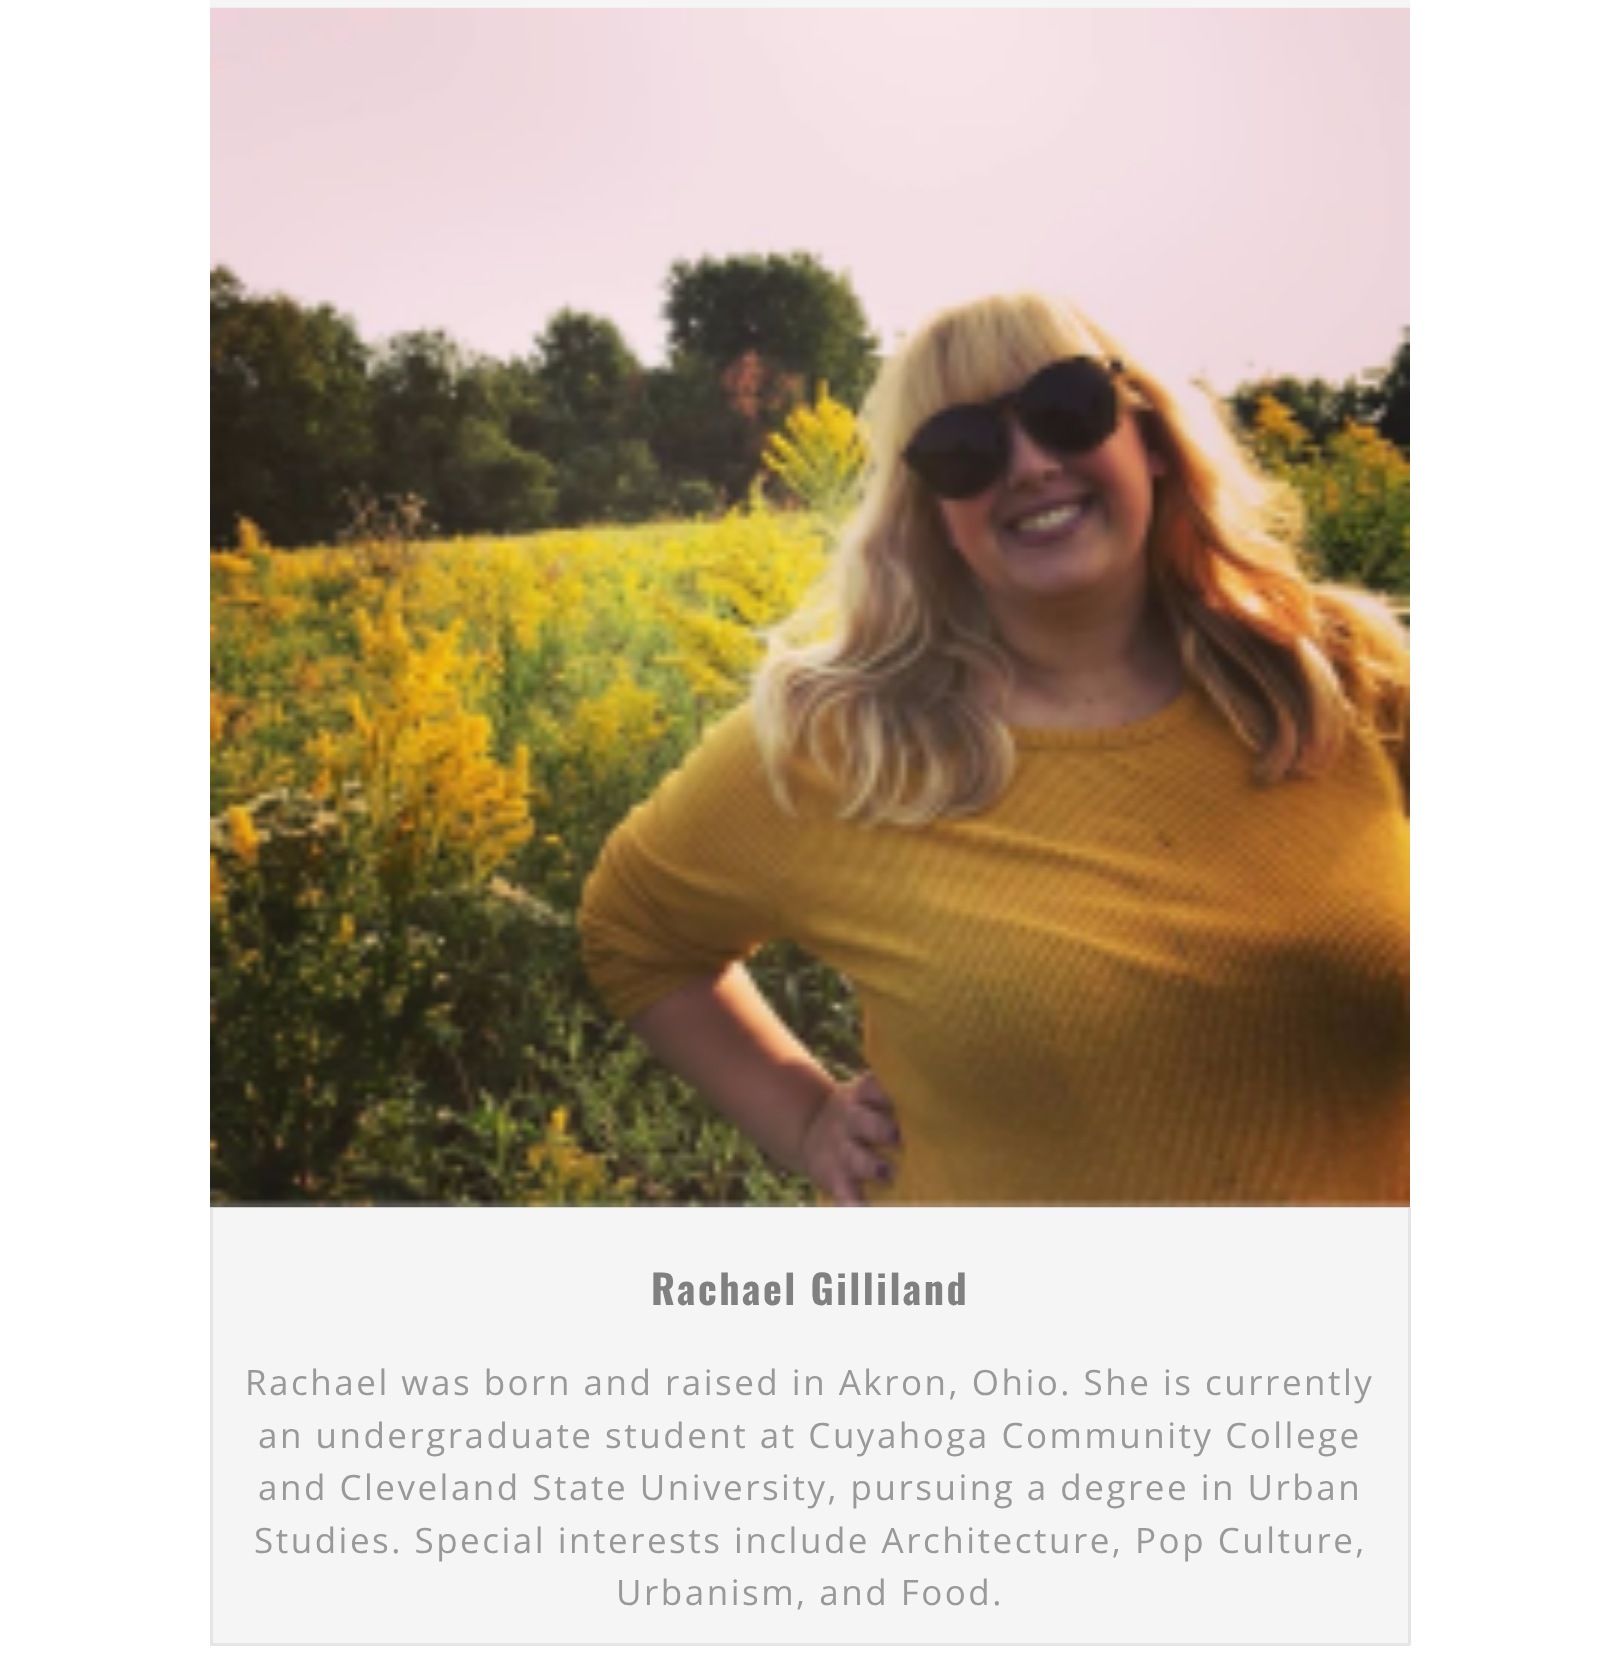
(async () => {
  const canvas = document.querySelector("canvas");
  canvas.width = 1620;
  canvas.height = 1657;
  const ctx = canvas.getContext("2d");
  ctx.miterLimit = 4;
  ctx.fontKerning = "normal";
  async function loadImage(src) {
    const img = new Image();
    img.src = src;
    await img.decode();
    return img;
  }

  ctx.fillStyle = "#ffffff";
  ctx.fillRect(0, 0, 1620, 1657);
  ctx.fillStyle = "#f5f5f5";
  ctx.fillRect(210, 0, 1200, 1643);
  ctx.drawImage(await loadImage("img/1.png"), 210, 7, 1200, 1201);
  for (const [x, y, w, h, color] of [
    [1408, 1208, 3, 437, "#e5e5e5"],
    [210, 1643, 1200, 3, "#e5e5e5"],
    [210, 1208, 3, 437, "#e5e5e5"],
  ]) {
    ctx.fillStyle = color;
    ctx.fillRect(x, y, w, h);
  }
  ctx.letterSpacing = "2.5px";
  ctx.font = "bold 40px Oswald";
  ctx.fillStyle = "#808080";
  ctx.fillText("Rachael Gilliland", 651, 1305);
  ctx.font = "35px Open Sans";
  ctx.fillStyle = "#999999";
  for (const [text, x, y] of [
    ["Rachael was born and raised in Akron, Ohio. She is currently", 245, 1395],
    ["an undergraduate student at Cuyahoga Community College", 258, 1448],
    ["and Cleveland State University, pursuing a degree in Urban", 258, 1500],
    ["Studies. Special interests include Architecture, Pop Culture,", 254, 1553],
    ["Urbanism, and Food.", 616, 1605],
  ]) {
    ctx.fillText(text, x, y);
  }
})();
